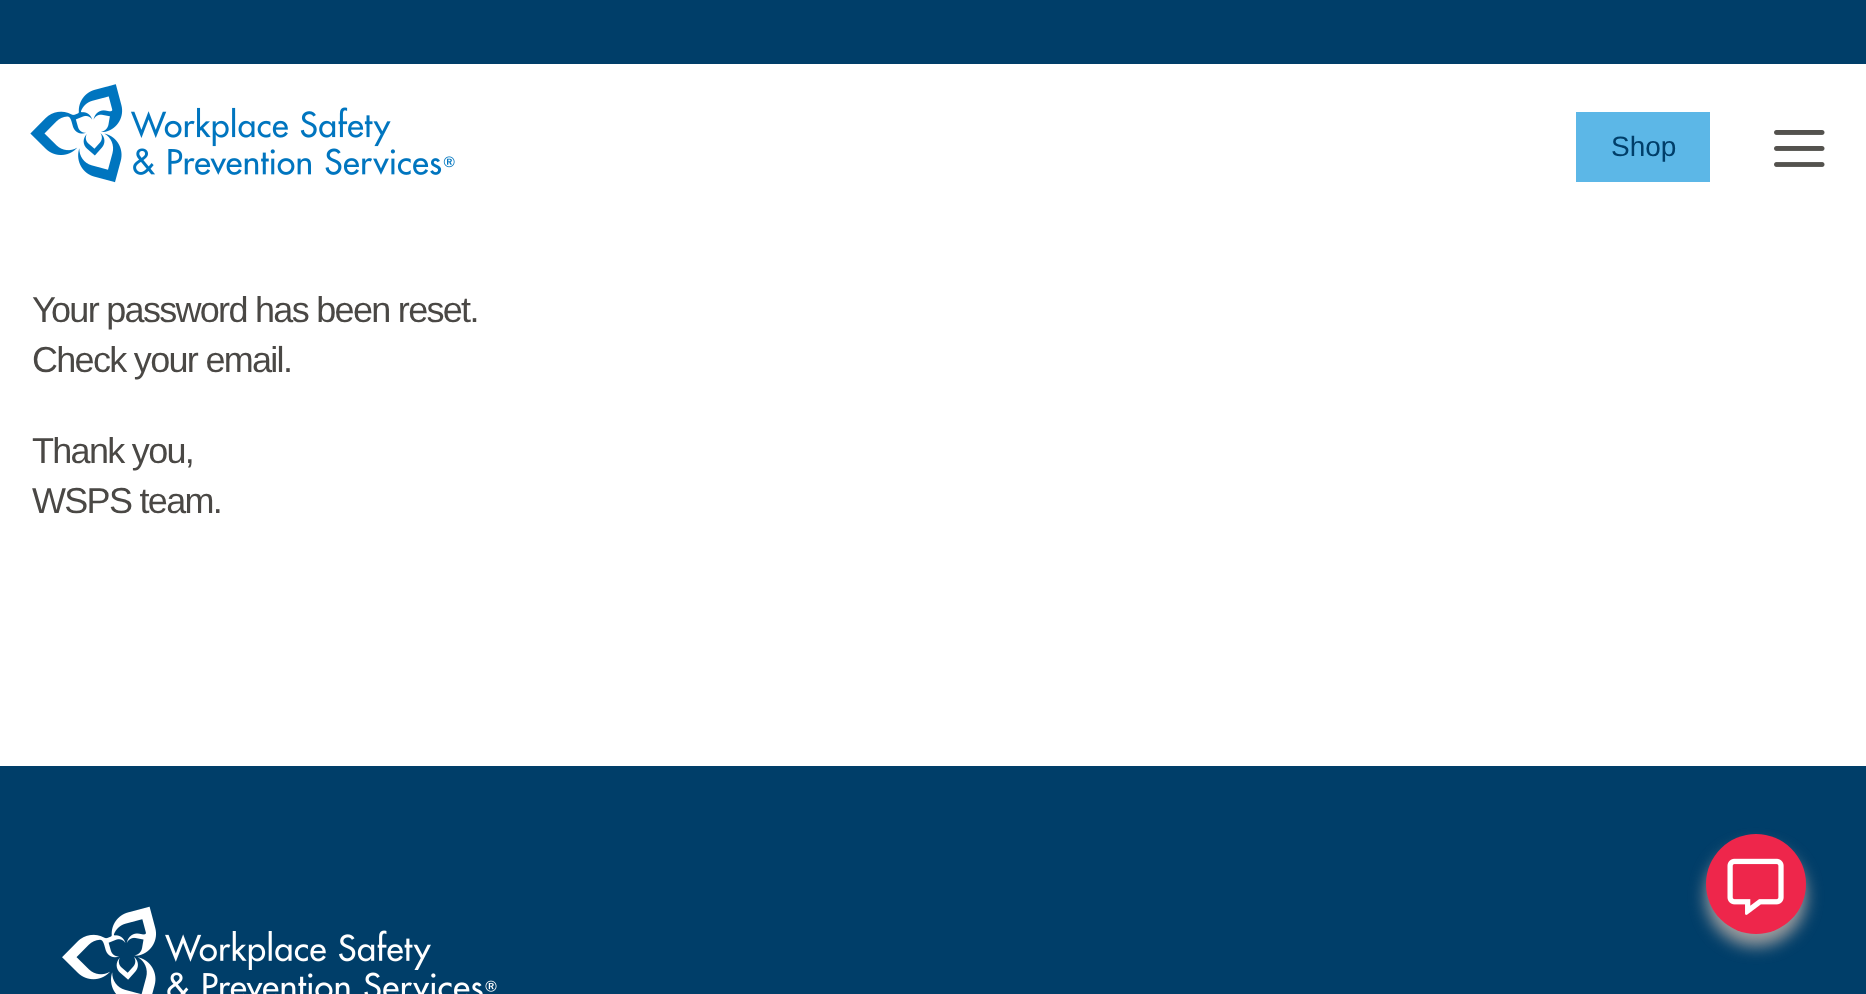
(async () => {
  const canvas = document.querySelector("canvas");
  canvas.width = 1866;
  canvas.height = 994;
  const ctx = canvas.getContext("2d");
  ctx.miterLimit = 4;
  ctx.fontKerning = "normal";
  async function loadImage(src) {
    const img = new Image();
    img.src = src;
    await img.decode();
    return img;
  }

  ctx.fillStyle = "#ffffff";
  ctx.fillRect(0, 0, 1866, 994);
  ctx.fillStyle = "#003e69";
  ctx.fillRect(0, 0, 1866, 64);
  ctx.drawImage(await loadImage("img/1.png"), 30, 84, 425, 99);
  ctx.fillStyle = "#5cb7e7";
  ctx.fillRect(1576, 112, 134, 70);
  ctx.drawImage(await loadImage("img/2.png"), 1774, 130, 51, 37);
  ctx.fillStyle = "#003e69";
  ctx.fillRect(0, 766, 1866, 228);
  ctx.drawImage(await loadImage("img/3.png"), 62, 906, 435, 88);
  ctx.fillStyle = "#9d9d9d";
  ctx.filter = "blur(8px)";
  ctx.beginPath();
  ctx.roundRect(1706, 846, 100, 100, 50);
  ctx.fill();
  ctx.filter = "none";
  ctx.fillStyle = "#ee264b";
  ctx.beginPath();
  ctx.arc(1756, 884, 50, 0, Math.PI * 2);
  ctx.fill();
  ctx.drawImage(await loadImage("img/4.png"), 1727, 858, 57, 57);
  ctx.font = "28px Liberation Sans";
  ctx.fillStyle = "#003e69";
  ctx.fillText("Shop", 1611, 156);
  ctx.letterSpacing = "-1.7px";
  ctx.font = "36px Liberation Sans";
  ctx.fillStyle = "#4a4845";
  for (const [text, x, y] of [
    ["Your password has been reset.", 32, 322],
    ["Check your email.", 32, 372],
    ["Thank you,", 32, 463],
    ["WSPS team.", 32, 513],
  ]) {
    ctx.fillText(text, x, y);
  }
})();
